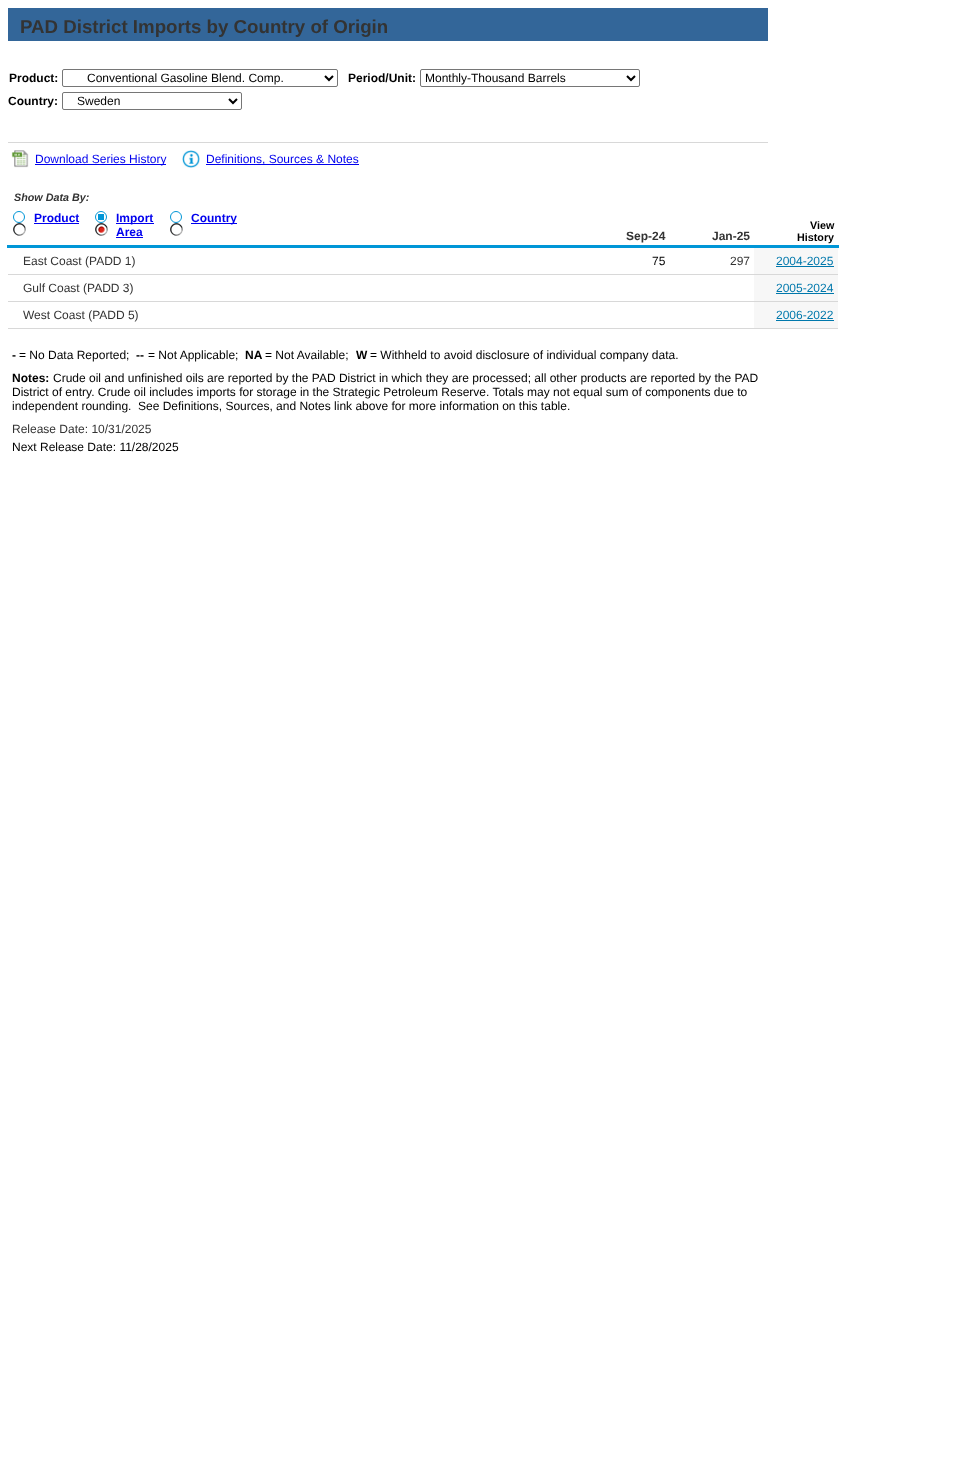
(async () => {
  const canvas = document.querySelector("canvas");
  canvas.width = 953;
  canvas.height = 1458;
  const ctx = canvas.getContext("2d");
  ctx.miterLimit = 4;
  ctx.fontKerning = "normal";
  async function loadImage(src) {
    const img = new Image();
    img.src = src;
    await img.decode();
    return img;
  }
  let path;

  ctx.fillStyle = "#ffffff";
  ctx.fillRect(0, 0, 953, 1458);
  ctx.fillStyle = "#d8d8d8";
  ctx.fillRect(8, 142, 760, 1);
  ctx.fillStyle = "#336699";
  ctx.fillRect(8, 8, 760, 33);
  ctx.beginPath();
  ctx.roundRect(62.5, 69.5, 275, 17, 1.5);
  ctx.strokeStyle = "#767676";
  ctx.stroke();
  path = new Path2D("M325 76L329 80L333 76");
  ctx.strokeStyle = "#000000";
  ctx.lineWidth = 2;
  ctx.stroke(path);
  ctx.beginPath();
  ctx.roundRect(420.5, 69.5, 219, 17, 1.5);
  ctx.strokeStyle = "#767676";
  ctx.lineWidth = 1;
  ctx.stroke();
  path = new Path2D("M627 76L631 80L635 76");
  ctx.strokeStyle = "#000000";
  ctx.lineWidth = 2;
  ctx.stroke(path);
  ctx.beginPath();
  ctx.roundRect(62.5, 92.5, 179, 17, 1.5);
  ctx.strokeStyle = "#767676";
  ctx.lineWidth = 1;
  ctx.stroke();
  path = new Path2D("M229 99L233 103L237 99");
  ctx.strokeStyle = "#000000";
  ctx.lineWidth = 2;
  ctx.stroke(path);
  ctx.drawImage(await loadImage("img/1.png"), 11, 150, 18, 18);
  ctx.fillStyle = "#0000ee";
  ctx.fillRect(35, 164, 131, 1);
  ctx.drawImage(await loadImage("img/2.png"), 182, 150, 18, 18);
  ctx.fillRect(206, 164, 153, 1);
  ctx.beginPath();
  ctx.arc(19, 217, 5.5, 0, Math.PI * 2);
  ctx.strokeStyle = "#0096d7";
  ctx.lineWidth = 1;
  ctx.stroke();
  ctx.drawImage(await loadImage("img/3.png"), 13, 223, 13, 13);
  ctx.fillRect(34, 223, 45, 1);
  ctx.fillStyle = "#0096d7";
  ctx.fillRect(98, 214, 6, 6);
  ctx.beginPath();
  ctx.arc(101, 217, 5.5, 0, Math.PI * 2);
  ctx.stroke();
  ctx.drawImage(await loadImage("img/4.png"), 95, 223, 13, 13);
  ctx.fillStyle = "#0000ee";
  ctx.fillRect(116, 223, 38, 1);
  ctx.fillRect(116, 237, 27, 1);
  ctx.beginPath();
  ctx.arc(176, 217, 5.5, 0, Math.PI * 2);
  ctx.stroke();
  ctx.drawImage(await loadImage("img/3.png"), 170, 223, 13, 13);
  for (const [x, y, w, h, color] of [
    [191, 223, 46, 1, "#0000ee"],
    [7, 245, 832, 3, "#0096d7"],
    [754, 248, 84, 26, "#f7f7f7"],
    [8, 274, 830, 1, "#d8d8d8"],
    [776, 266, 58, 1, "#0078ac"],
    [754, 275, 84, 26, "#f7f7f7"],
    [8, 301, 830, 1, "#d8d8d8"],
    [776, 293, 58, 1, "#0078ac"],
    [754, 302, 84, 26, "#f7f7f7"],
    [8, 328, 830, 1, "#d8d8d8"],
    [776, 320, 58, 1, "#0078ac"],
  ]) {
    ctx.fillStyle = color;
    ctx.fillRect(x, y, w, h);
  }
  ctx.font = "bold 18.7px Liberation Sans";
  ctx.fillStyle = "#333333";
  ctx.fillText("PAD District Imports by Country of Origin", 20, 33);
  ctx.font = "bold 12px Liberation Sans";
  ctx.fillStyle = "#000000";
  ctx.fillText("Product:", 9, 82);
  ctx.font = "12px Liberation Sans";
  ctx.fillText("Conventional Gasoline Blend. Comp.", 87, 82);
  ctx.font = "bold 12px Liberation Sans";
  ctx.fillText("Period/Unit:", 348, 82);
  ctx.font = "12px Liberation Sans";
  ctx.fillText("Monthly-Thousand Barrels", 425, 82);
  ctx.font = "bold 12px Liberation Sans";
  ctx.fillText("Country:", 8, 105);
  ctx.font = "12px Liberation Sans";
  ctx.fillText("Sweden", 77, 105);
  ctx.fillStyle = "#0000ee";
  ctx.fillText("Download Series History", 35, 163);
  ctx.fillText("Definitions, Sources & Notes", 206, 163);
  ctx.font = "italic bold 10.75px Liberation Sans";
  ctx.fillStyle = "#333333";
  ctx.fillText("Show Data By:", 14, 201);
  ctx.font = "bold 12px Liberation Sans";
  ctx.fillStyle = "#0000ee";
  for (const [text, x, y] of [
    ["Product", 34, 222],
    ["Import", 116, 222],
    ["Area", 116, 236],
    ["Country", 191, 222],
  ]) {
    ctx.fillText(text, x, y);
  }
  ctx.fillStyle = "#333333";
  ctx.fillText("Sep-24", 626, 240);
  ctx.fillText("Jan-25", 712, 240);
  ctx.font = "bold 10.75px Liberation Sans";
  ctx.fillStyle = "#000000";
  ctx.fillText("View", 810, 229);
  ctx.fillText("History", 797, 241);
  ctx.font = "12px Liberation Sans";
  ctx.fillStyle = "#333333";
  ctx.fillText("East Coast (PADD 1)", 23, 265);
  ctx.fillStyle = "#000000";
  ctx.fillText("75", 652, 265);
  ctx.fillStyle = "#333333";
  ctx.fillText("297", 730, 265);
  ctx.fillStyle = "#0078ac";
  ctx.fillText("2004-2025", 776, 265);
  ctx.fillStyle = "#333333";
  ctx.fillText("Gulf Coast (PADD 3)", 23, 292);
  ctx.fillStyle = "#0078ac";
  ctx.fillText("2005-2024", 776, 292);
  ctx.fillStyle = "#333333";
  ctx.fillText("West Coast (PADD 5)", 23, 319);
  ctx.fillStyle = "#0078ac";
  ctx.fillText("2006-2022", 776, 319);
  ctx.font = "bold 12px Liberation Sans";
  ctx.fillStyle = "#000000";
  ctx.fillText("-", 12, 359);
  ctx.font = "12px Liberation Sans";
  ctx.fillText("= No Data Reported;", 19, 359);
  ctx.font = "bold 12px Liberation Sans";
  ctx.fillText("--", 136, 359);
  ctx.font = "12px Liberation Sans";
  ctx.fillText("= Not Applicable;", 148, 359);
  ctx.font = "bold 12px Liberation Sans";
  ctx.fillText("NA", 245, 359);
  ctx.font = "12px Liberation Sans";
  ctx.fillText("= Not Available;", 265, 359);
  ctx.font = "bold 12px Liberation Sans";
  ctx.fillText("W", 356, 359);
  ctx.font = "12px Liberation Sans";
  ctx.fillText("= Withheld to avoid disclosure of individual company data.", 370, 359);
  ctx.font = "bold 12px Liberation Sans";
  ctx.fillText("Notes:", 12, 382);
  ctx.font = "12px Liberation Sans";
  for (const [text, x, y] of [
    ["Crude oil and unfinished oils are reported by the PAD District in which they are processed; all other products are reported by the PAD", 53, 382],
    ["District of entry. Crude oil includes imports for storage in the Strategic Petroleum Reserve. Totals may not equal sum of components due to", 12, 396],
    ["independent rounding.", 12, 410],
    ["See Definitions, Sources, and Notes link above for more information on this table.", 138, 410],
  ]) {
    ctx.fillText(text, x, y);
  }
  ctx.fillStyle = "#333333";
  ctx.fillText("Release Date: 10/31/2025", 12, 433);
  ctx.fillStyle = "#000000";
  ctx.fillText("Next Release Date: 11/28/2025", 12, 451);
})();
